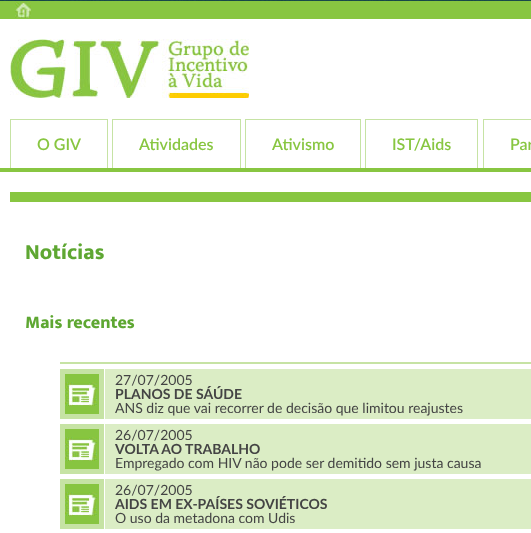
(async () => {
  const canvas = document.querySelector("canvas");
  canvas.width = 531;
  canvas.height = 533;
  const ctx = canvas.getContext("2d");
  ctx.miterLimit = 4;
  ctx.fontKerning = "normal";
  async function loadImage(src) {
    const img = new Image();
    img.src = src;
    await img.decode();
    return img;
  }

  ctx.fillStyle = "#ffffff";
  ctx.fillRect(0, 0, 531, 533);
  ctx.drawImage(await loadImage("img/1.png"), 0, 0, 531, 1);
  ctx.fillStyle = "#88c641";
  ctx.fillRect(0, 1, 531, 18);
  ctx.drawImage(await loadImage("img/2.png"), 15, 2, 16, 16);
  ctx.drawImage(await loadImage("img/3.png"), 10, 39, 239, 59);
  for (const [x, y, w, h, color] of [
    [0, 168, 531, 4, "#88c641"],
    [10, 119, 98, 1, "#c6e3a4"],
    [107, 119, 1, 49, "#c6e3a4"],
    [10, 119, 1, 49, "#c6e3a4"],
    [112, 119, 129, 1, "#c6e3a4"],
    [240, 119, 1, 49, "#c6e3a4"],
    [112, 119, 1, 49, "#c6e3a4"],
    [245, 119, 116, 1, "#c6e3a4"],
    [360, 119, 1, 49, "#c6e3a4"],
    [245, 119, 1, 49, "#c6e3a4"],
    [365, 119, 113, 1, "#c6e3a4"],
    [477, 119, 1, 49, "#c6e3a4"],
    [365, 119, 1, 49, "#c6e3a4"],
    [483, 119, 48, 1, "#c6e3a4"],
    [483, 119, 1, 49, "#c6e3a4"],
    [10, 192, 521, 10, "#88c641"],
    [60, 362, 471, 2, "#c6e3a4"],
    [60, 369, 44, 50, "#c6e3a4"],
  ]) {
    ctx.fillStyle = color;
    ctx.fillRect(x, y, w, h);
  }
  ctx.drawImage(await loadImage("img/4.png"), 65, 374, 34, 40);
  ctx.fillStyle = "#dbedc5";
  ctx.fillRect(105, 369, 426, 50);
  ctx.fillStyle = "#c6e3a4";
  ctx.fillRect(60, 424, 44, 50);
  ctx.drawImage(await loadImage("img/4.png"), 65, 429, 34, 40);
  ctx.fillStyle = "#dbedc5";
  ctx.fillRect(105, 424, 426, 50);
  ctx.fillStyle = "#c6e3a4";
  ctx.fillRect(60, 479, 44, 50);
  ctx.drawImage(await loadImage("img/4.png"), 65, 484, 34, 40);
  ctx.fillStyle = "#dbedc5";
  ctx.fillRect(105, 479, 426, 50);
  ctx.font = "600 16px Lato";
  ctx.fillStyle = "#88c641";
  for (const [text, x, y] of [
    ["O GIV", 37, 150],
    ["Atividades", 139, 150],
    ["Ativismo", 272, 150],
    ["IST/Aids", 392, 150],
    ["Par", 510, 150],
  ]) {
    ctx.fillText(text, x, y);
  }
  ctx.font = "800 22px Ek Mukta";
  ctx.fillStyle = "#5ea732";
  ctx.fillText("Notícias", 25, 259);
  ctx.font = "800 18px Ek Mukta";
  ctx.fillText("Mais recentes", 25, 328);
  ctx.font = "14px Lato";
  ctx.fillStyle = "#444444";
  ctx.fillText("27/07/2005", 115, 385);
  ctx.font = "bold 14px Lato";
  ctx.fillText("PLANOS DE SÁÚDE", 115, 399);
  ctx.font = "14px Lato";
  ctx.fillText("ANS diz que vai recorrer de decisão que limitou reajustes", 115, 413);
  ctx.fillText("26/07/2005", 115, 440);
  ctx.font = "bold 14px Lato";
  ctx.fillText("VOLTA AO TRABALHO", 115, 454);
  ctx.font = "14px Lato";
  ctx.fillText("Empregado com HIV não pode ser demitido sem justa causa", 115, 468);
  ctx.fillText("26/07/2005", 115, 495);
  ctx.font = "bold 14px Lato";
  ctx.fillText("AIDS EM EX-PAÍSES SOVIÉTICOS", 115, 509);
  ctx.font = "14px Lato";
  ctx.fillText("O uso da metadona com Udis", 115, 523);
})();
